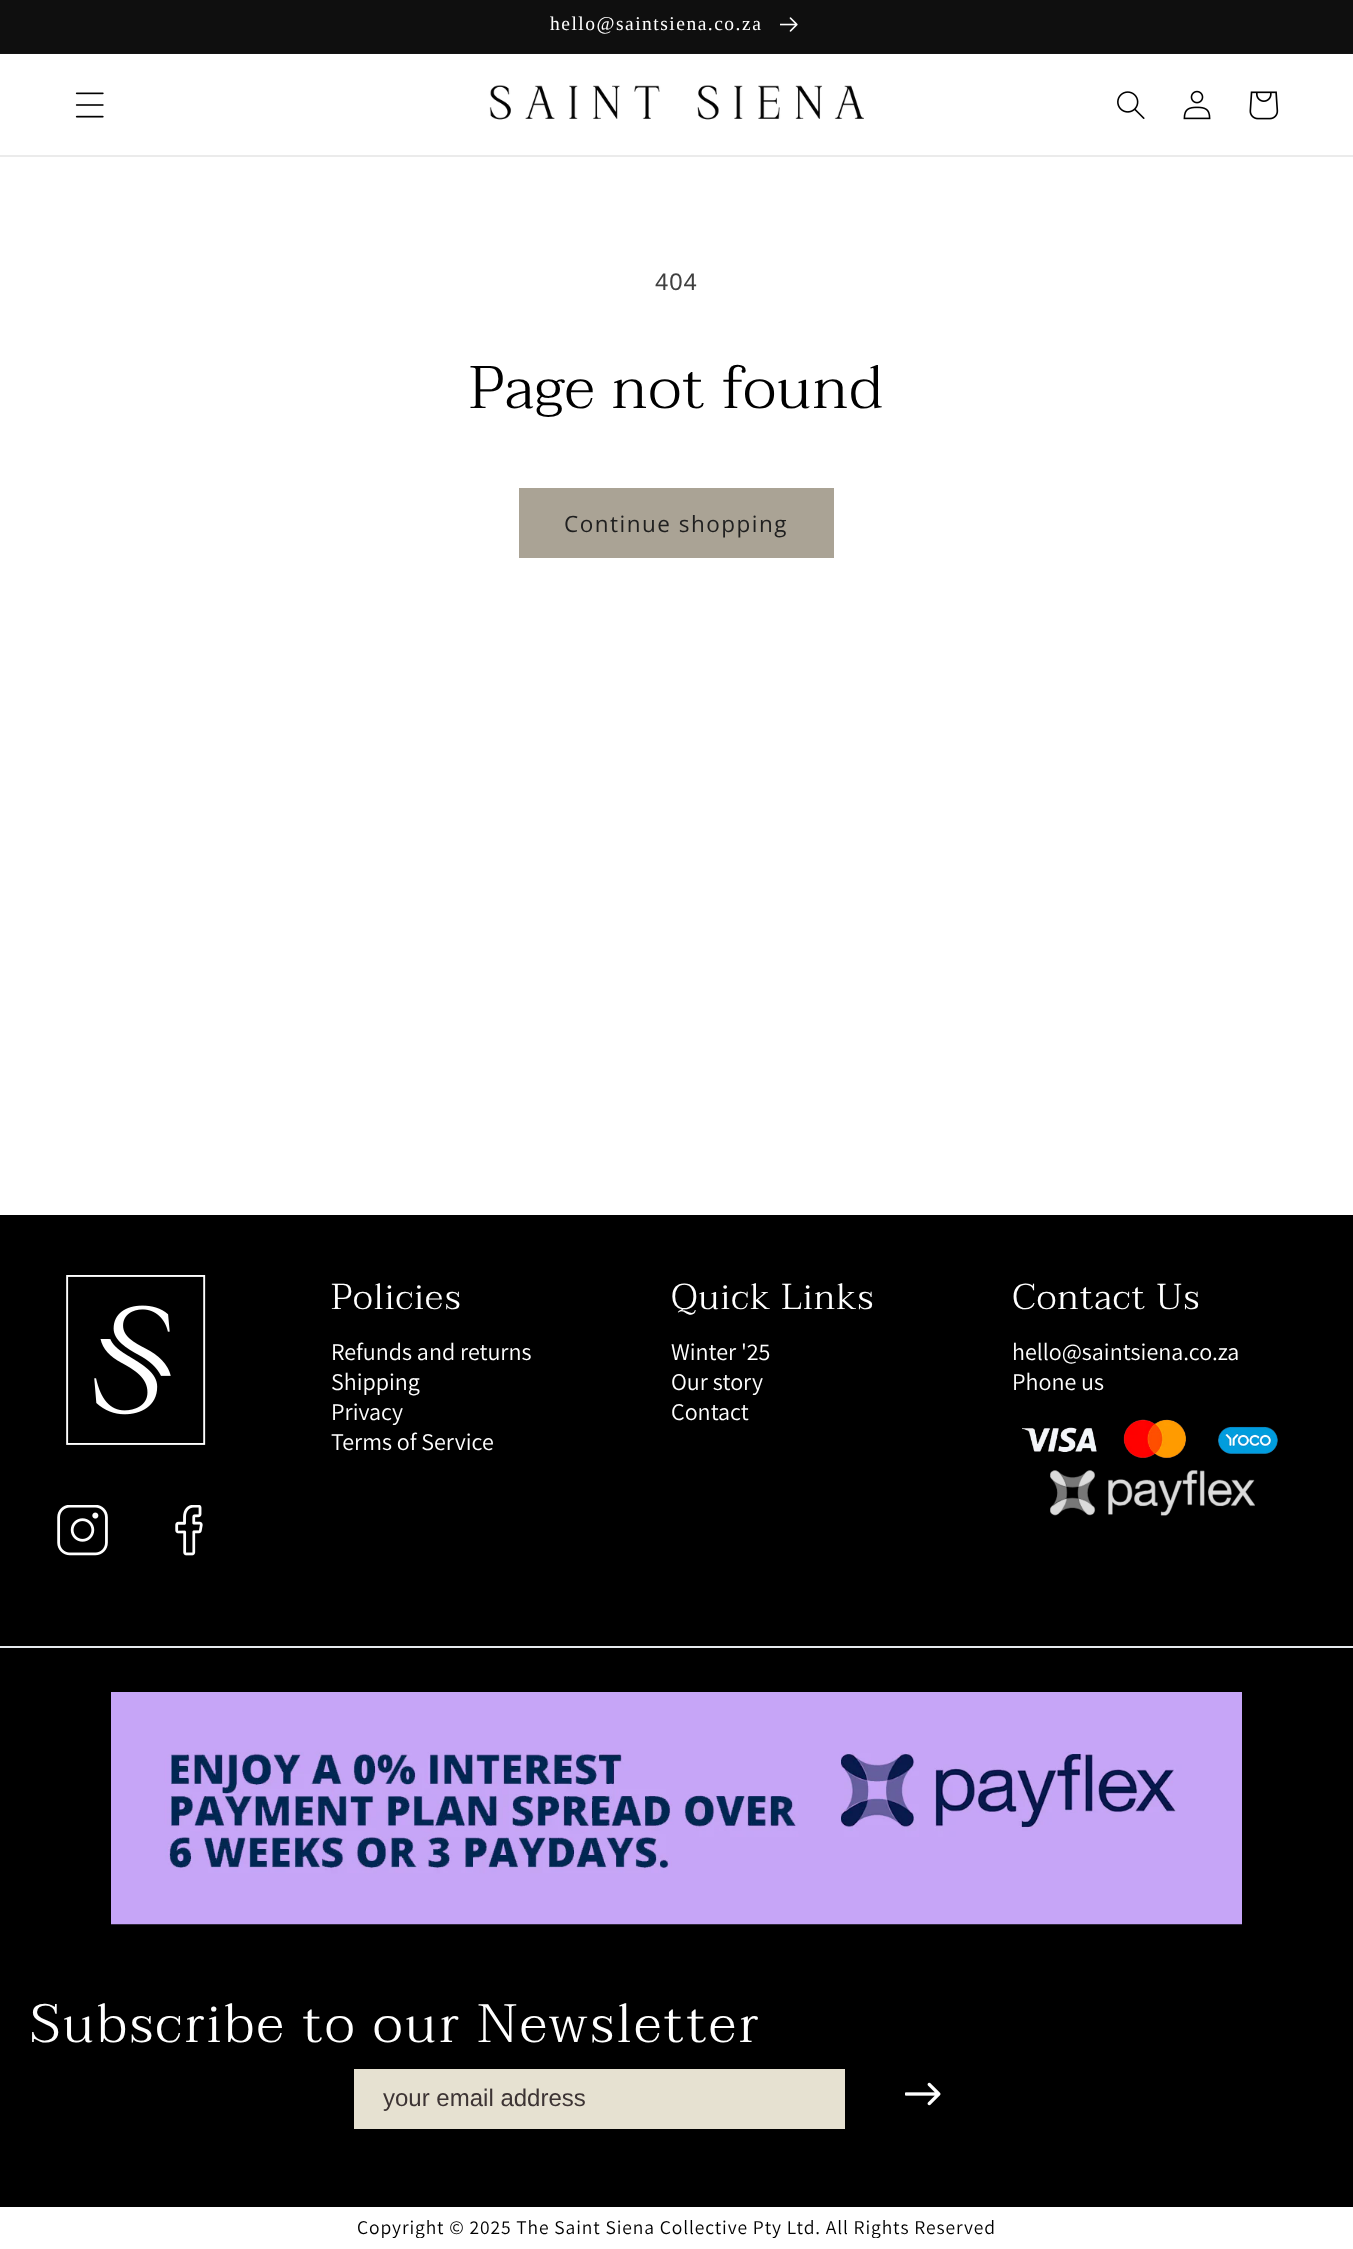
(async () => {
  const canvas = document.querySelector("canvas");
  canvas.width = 1353;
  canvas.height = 2249;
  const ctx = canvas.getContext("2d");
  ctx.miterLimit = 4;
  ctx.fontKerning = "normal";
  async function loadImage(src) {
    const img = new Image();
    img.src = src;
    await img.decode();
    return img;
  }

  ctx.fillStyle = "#ffffff";
  ctx.fillRect(0, 0, 1353, 2249);
  ctx.fillStyle = "#141414";
  ctx.fillRect(0, 53, 1353, 1);
  ctx.fillStyle = "#0f0f0f";
  ctx.fillRect(0, 0, 1353, 53);
  ctx.drawImage(await loadImage("img/1.png"), 780, 17, 18, 15);
  ctx.fillStyle = "#ebebeb";
  ctx.fillRect(0, 155, 1353, 2);
  ctx.drawImage(await loadImage("img/2.png"), 75, 92, 29, 26);
  ctx.drawImage(await loadImage("img/3.png"), 489, 85, 375, 35);
  ctx.drawImage(await loadImage("img/4.png"), 1117, 91, 28, 28);
  ctx.drawImage(await loadImage("img/5.png"), 1183, 90, 28, 30);
  ctx.drawImage(await loadImage("img/6.png"), 1249, 91, 30, 29);
  ctx.fillStyle = "#aaa395";
  ctx.fillRect(519, 488, 315, 70);
  ctx.fillStyle = "#000000";
  ctx.fillRect(0, 1215, 1353, 992);
  ctx.drawImage(await loadImage("img/7.png"), 66, 1275, 140, 170);
  ctx.drawImage(await loadImage("img/8.png"), 57, 1505, 51, 51);
  ctx.drawImage(await loadImage("img/9.png"), 175, 1505, 28, 51);
  ctx.drawImage(await loadImage("img/10.png"), 1022, 1419, 256, 97);
  ctx.fillStyle = "#e5e8ec";
  ctx.fillRect(0, 1646, 1353, 2);
  ctx.drawImage(await loadImage("img/11.png"), 111, 1692, 1131, 233);
  ctx.fillStyle = "#e6e1d1";
  ctx.fillRect(354, 2069, 491, 60);
  ctx.drawImage(await loadImage("img/12.png"), 905, 2082, 36, 24);
  ctx.letterSpacing = "1.5px";
  ctx.font = "19.5px Liberation Serif";
  ctx.fillStyle = "#ffffff";
  ctx.fillText("hello@saintsiena.co.za", 550, 30);
  ctx.letterSpacing = "0.9px";
  ctx.font = "24px Liberation Sans";
  ctx.fillStyle = "#404040";
  ctx.fillText("404", 655, 290);
  ctx.font = "300 60px Taviraj";
  ctx.fillStyle = "#000000";
  ctx.fillText("Page not found", 469, 408);
  ctx.letterSpacing = "1.5px";
  ctx.font = "22.5px Open Sans";
  ctx.fillStyle = "#1f1f1f";
  ctx.fillText("Continue shopping", 564, 532);
  ctx.letterSpacing = "1px";
  ctx.font = "300 36px Taviraj";
  ctx.fillStyle = "#ffffff";
  ctx.fillText("Policies", 331, 1309);
  ctx.letterSpacing = "0px";
  ctx.font = "24px Assistant";
  for (const [text, x, y] of [
    ["Refunds and returns", 331, 1360],
    ["Shipping", 331, 1390],
    ["Privacy", 331, 1420],
    ["Terms of Service", 331, 1450],
  ]) {
    ctx.fillText(text, x, y);
  }
  ctx.letterSpacing = "1px";
  ctx.font = "300 36px Taviraj";
  ctx.fillText("Quick Links", 671, 1309);
  ctx.letterSpacing = "0px";
  ctx.font = "24px Assistant";
  for (const [text, x, y] of [
    ["Winter '25", 671, 1360],
    ["Our story", 671, 1390],
    ["Contact", 671, 1420],
  ]) {
    ctx.fillText(text, x, y);
  }
  ctx.letterSpacing = "1px";
  ctx.font = "300 36px Taviraj";
  ctx.fillText("Contact Us", 1012, 1309);
  ctx.letterSpacing = "0px";
  ctx.font = "24px Assistant";
  ctx.fillText("hello@saintsiena.co.za", 1012, 1360);
  ctx.fillText("Phone us", 1012, 1390);
  ctx.letterSpacing = "2.4px";
  ctx.font = "300 54px Taviraj";
  ctx.fillText("Subscribe to our Newsletter", 30, 2042);
  ctx.letterSpacing = "0px";
  ctx.font = "24px Liberation Sans";
  ctx.fillStyle = "#3d3434";
  ctx.fillText("your email address", 383, 2106);
  ctx.save();
  ctx.beginPath();
  ctx.rect(9, 2216, 1335, 22);
  ctx.clip();
  ctx.letterSpacing = "0.9px";
  ctx.font = "19.5px Assistant";
  ctx.fillStyle = "#000000";
  ctx.fillText("Copyright © 2025 The Saint Siena Collective Pty Ltd. All Rights Reserved", 357, 2234);
  ctx.restore();
})();
